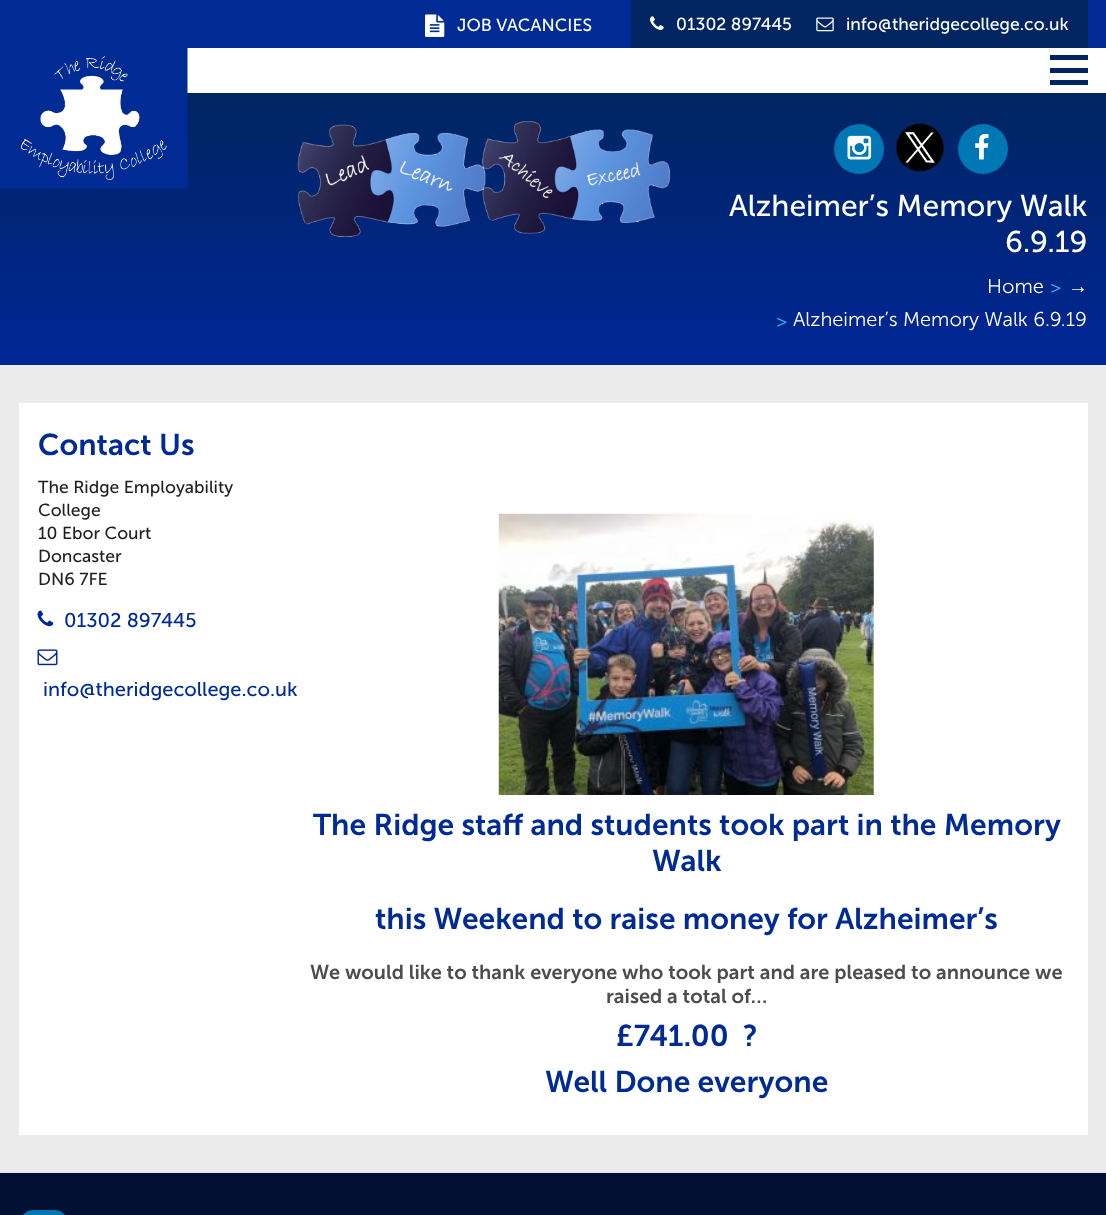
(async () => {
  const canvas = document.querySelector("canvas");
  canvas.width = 1106;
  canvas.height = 1215;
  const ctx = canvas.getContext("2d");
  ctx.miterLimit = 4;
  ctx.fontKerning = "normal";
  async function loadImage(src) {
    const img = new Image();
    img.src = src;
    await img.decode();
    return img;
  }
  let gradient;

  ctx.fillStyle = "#ffffff";
  ctx.fillRect(0, 0, 1106, 1215);
  ctx.fillStyle = "#002b94";
  ctx.fillRect(0, 0, 1106, 48);
  ctx.drawImage(await loadImage("img/1.png"), 425, 14, 20, 23);
  ctx.fillStyle = "#002560";
  ctx.fillRect(631, 0, 457, 48);
  ctx.drawImage(await loadImage("img/2.png"), 650, 16, 14, 14);
  ctx.drawImage(await loadImage("img/3.png"), 816, 17, 18, 15);
  gradient = ctx.createLinearGradient(553, 92, 553, 365);
  gradient.addColorStop(0, "#002560");
  gradient.addColorStop(1, "#002697");
  ctx.fillStyle = gradient;
  ctx.fillRect(0, 93, 1106, 272);
  ctx.drawImage(await loadImage("img/4.png"), 0, 48, 188, 141);
  for (const [x, y, w, h, color] of [
    [1050, 55, 38, 5, "#002560"],
    [1050, 68, 38, 5, "#002560"],
    [1050, 80, 38, 5, "#002560"],
  ]) {
    ctx.fillStyle = color;
    ctx.fillRect(x, y, w, h);
  }
  ctx.fillStyle = "#0077b5";
  ctx.beginPath();
  ctx.arc(859, 149, 25, 0, Math.PI * 2);
  ctx.fill();
  ctx.drawImage(await loadImage("img/5.png"), 847, 135, 25, 25);
  ctx.drawImage(await loadImage("img/6.png"), 896, 123, 48, 49);
  ctx.beginPath();
  ctx.arc(983, 149, 25, 0, Math.PI * 2);
  ctx.fill();
  ctx.drawImage(await loadImage("img/7.png"), 975, 133, 14, 27);
  ctx.drawImage(await loadImage("img/8.png"), 297, 121, 374, 117);
  ctx.fillStyle = "#ebebeb";
  ctx.fillRect(0, 365, 1106, 808);
  ctx.fillStyle = "#ffffff";
  ctx.fillRect(19, 403, 1069, 732);
  ctx.drawImage(await loadImage("img/9.png"), 37, 610, 17, 17);
  ctx.drawImage(await loadImage("img/10.png"), 37, 649, 21, 17);
  ctx.drawImage(await loadImage("img/11.png"), 498, 513, 376, 282);
  ctx.fillStyle = "#021033";
  ctx.fillRect(0, 1173, 1106, 42);
  ctx.fillStyle = "#0077b5";
  ctx.beginPath();
  ctx.roundRect(19, 1210, 50, 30, 25);
  ctx.fill();
  ctx.font = "17.5px Museo Sans";
  ctx.fillStyle = "#ffffff";
  for (const [text, x, y] of [
    ["JOB VACANCIES", 457, 31],
    ["01302 897445", 676, 30],
    ["info@theridgecollege.co.uk", 846, 30],
  ]) {
    ctx.fillText(text, x, y);
  }
  ctx.font = "30px Museo Sans";
  ctx.fillText("Alzheimer’s Memory Walk", 729, 216);
  ctx.fillText("6.9.19", 1005, 252);
  ctx.font = "300 20px Museo Sans";
  ctx.fillText("Home", 987, 293);
  ctx.fillStyle = "#2fb5f2";
  ctx.fillText(">", 1050, 294);
  ctx.font = "20px Liberation Serif";
  ctx.fillStyle = "#ffffff";
  ctx.fillText("→", 1068, 293);
  ctx.font = "300 20px Museo Sans";
  ctx.fillStyle = "#2fb5f2";
  ctx.fillText(">", 776, 328);
  ctx.fillStyle = "#ffffff";
  ctx.fillText("Alzheimer’s Memory Walk 6.9.19", 793, 326);
  ctx.font = "600 30px Museo Sans";
  ctx.fillStyle = "#002b94";
  ctx.fillText("Contact Us", 38, 455);
  ctx.font = "17.5px Museo Sans";
  ctx.fillStyle = "#1f1f1f";
  for (const [text, x, y] of [
    ["The Ridge Employability", 38, 493],
    ["College", 38, 516],
    ["10 Ebor Court", 38, 539],
    ["Doncaster", 38, 562],
    ["DN6 7FE", 38, 585],
  ]) {
    ctx.fillText(text, x, y);
  }
  ctx.font = "20px Museo Sans";
  ctx.fillStyle = "#002b94";
  ctx.fillText("01302 897445", 64, 627);
  ctx.fillText("info@theridgecollege.co.uk", 43, 696);
  ctx.font = "600 30px Museo Sans";
  for (const [text, x, y] of [
    ["The Ridge staff and students took part in the Memory", 313, 835],
    ["Walk", 652, 871],
    ["this Weekend to raise money for Alzheimer’s", 375, 929],
  ]) {
    ctx.fillText(text, x, y);
  }
  ctx.font = "600 20px Museo Sans";
  ctx.fillStyle = "#4d4d4d";
  ctx.fillText("We would like to thank everyone who took part and are pleased to announce we", 310, 979);
  ctx.fillText("raised a total of…", 606, 1003);
  ctx.font = "600 30px Museo Sans";
  ctx.fillStyle = "#002b94";
  for (const [text, x, y] of [
    ["£741.00", 616, 1046],
    ["?", 743, 1046],
    ["Well Done everyone", 545, 1092],
  ]) {
    ctx.fillText(text, x, y);
  }
})();
